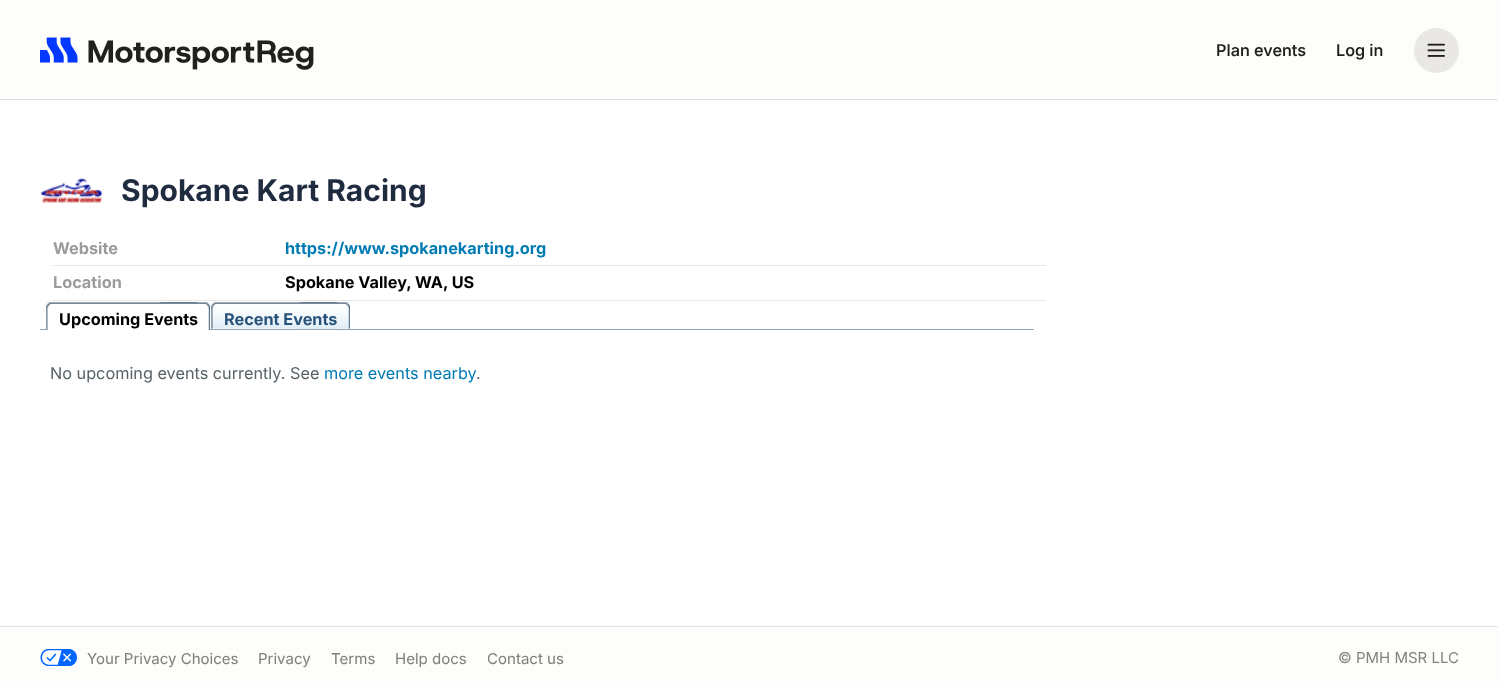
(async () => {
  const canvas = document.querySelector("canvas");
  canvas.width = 1498;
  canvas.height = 687;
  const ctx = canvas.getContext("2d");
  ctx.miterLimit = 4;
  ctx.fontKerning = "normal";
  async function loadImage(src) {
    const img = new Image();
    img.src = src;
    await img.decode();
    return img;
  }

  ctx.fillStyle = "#ffffff";
  ctx.fillRect(0, 0, 1498, 687);
  ctx.fillStyle = "#fdfdfc";
  ctx.fillRect(0, 0, 1498, 99);
  ctx.fillStyle = "#e2e1de";
  ctx.fillRect(0, 99, 1498, 1);
  ctx.drawImage(await loadImage("img/1.png"), 40, 37, 274, 33);
  ctx.fillStyle = "#e9e8e6";
  ctx.beginPath();
  ctx.arc(1436.5, 50.5, 22.5, 0, Math.PI * 2);
  ctx.fill();
  ctx.drawImage(await loadImage("img/2.png"), 1427, 43, 18, 14);
  ctx.drawImage(await loadImage("img/3.png"), 40, 178, 63, 25);
  for (const [x, y, w, h, color] of [
    [53, 265, 993, 1, "#e7e7e7"],
    [53, 300, 993, 1, "#e7e7e7"],
    [40, 329, 994, 1, "#97a5b0"],
  ]) {
    ctx.fillStyle = color;
    ctx.fillRect(x, y, w, h);
  }
  ctx.drawImage(await loadImage("img/4.png"), 46, 302, 164, 28);
  ctx.drawImage(await loadImage("img/5.png"), 46, 302, 152, 28);
  ctx.drawImage(await loadImage("img/6.png"), 299, 302, 51, 27);
  ctx.drawImage(await loadImage("img/7.png"), 211, 302, 127, 27);
  ctx.fillStyle = "#fdfdfc";
  ctx.fillRect(0, 627, 1498, 60);
  ctx.fillStyle = "#e2e1de";
  ctx.fillRect(0, 626, 1498, 1);
  ctx.drawImage(await loadImage("img/8.png"), 40, 649, 37, 17);
  ctx.font = "500 16.25px Inter";
  ctx.fillStyle = "#21201c";
  ctx.fillText("Plan events", 1216, 56);
  ctx.fillText("Log in", 1336, 56);
  ctx.font = "bold 30px Inter";
  ctx.fillStyle = "#1f2b3f";
  ctx.fillText("Spokane Kart Racing", 121, 201);
  ctx.font = "bold 16.25px Inter";
  ctx.fillStyle = "#9b9b9b";
  ctx.fillText("Website", 53, 254);
  ctx.fillStyle = "#007bb3";
  ctx.fillText("https://www.spokanekarting.org", 285, 254);
  ctx.fillStyle = "#9b9b9b";
  ctx.fillText("Location", 53, 288);
  ctx.fillStyle = "#000000";
  ctx.fillText("Spokane Valley, WA, US", 285, 288);
  ctx.fillText("Upcoming Events", 59, 325);
  ctx.fillStyle = "#27537a";
  ctx.fillText("Recent Events", 224, 325);
  ctx.font = "16.25px Inter";
  ctx.fillStyle = "#576269";
  ctx.fillText("No upcoming events currently. See", 50, 379);
  ctx.fillStyle = "#007bb3";
  ctx.fillText("more events nearby", 324, 379);
  ctx.fillStyle = "#576269";
  ctx.fillText(".", 476, 379);
  ctx.font = "15px 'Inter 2'";
  ctx.fillStyle = "#82827c";
  for (const [text, x, y] of [
    ["Your Privacy Choices", 87, 664],
    ["Privacy", 258, 664],
    ["Terms", 331, 664],
    ["Help docs", 395, 664],
    ["Contact us", 487, 664],
  ]) {
    ctx.fillText(text, x, y);
  }
  ctx.font = "15px Inter";
  ctx.fillText("© PMH MSR LLC", 1338, 663);
})();
